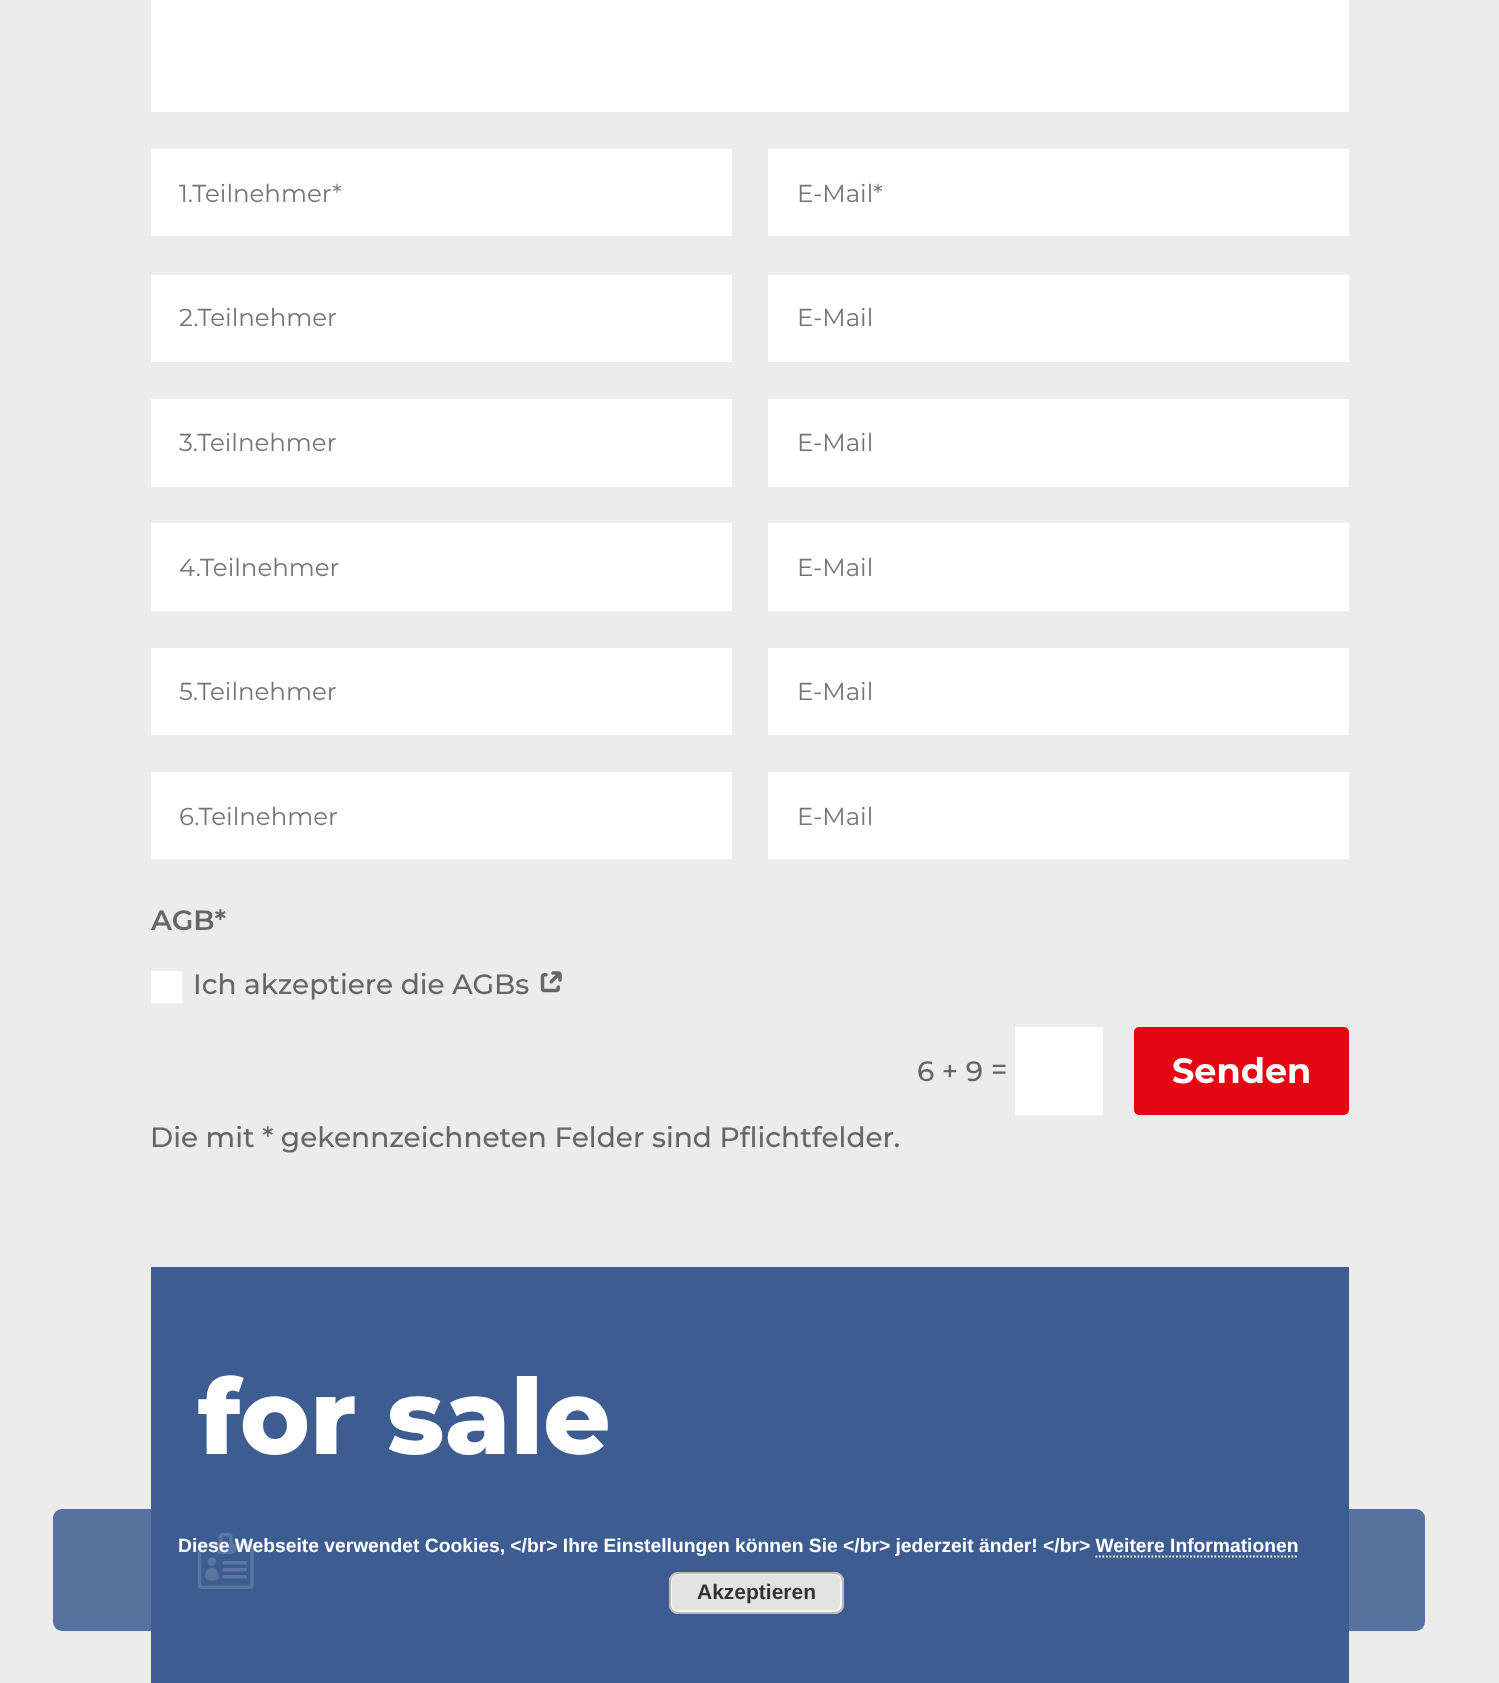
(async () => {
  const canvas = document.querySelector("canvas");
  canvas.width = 1499;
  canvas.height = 1683;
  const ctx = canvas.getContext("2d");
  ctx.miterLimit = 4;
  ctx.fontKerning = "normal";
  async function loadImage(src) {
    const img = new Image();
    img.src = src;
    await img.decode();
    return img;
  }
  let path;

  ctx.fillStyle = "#ececec";
  ctx.fillRect(0, 0, 1499, 1683);
  for (const [x, y, w, h, color] of [
    [151, 0, 1198, 112, "#ffffff"],
    [151, 149, 581, 87, "#ffffff"],
    [768, 149, 581, 87, "#ffffff"],
    [151, 275, 581, 87, "#ffffff"],
    [768, 275, 581, 87, "#ffffff"],
    [151, 399, 581, 88, "#ffffff"],
    [768, 399, 581, 88, "#ffffff"],
    [151, 523, 581, 88, "#ffffff"],
    [768, 523, 581, 88, "#ffffff"],
    [151, 648, 581, 87, "#ffffff"],
    [768, 648, 581, 87, "#ffffff"],
    [151, 772, 581, 87, "#ffffff"],
    [768, 772, 581, 87, "#ffffff"],
    [151, 971, 31, 32, "#ffffff"],
  ]) {
    ctx.fillStyle = color;
    ctx.fillRect(x, y, w, h);
  }
  ctx.drawImage(await loadImage("img/1.png"), 540, 971, 22, 22);
  ctx.fillRect(1015, 1027, 88, 88);
  ctx.fillStyle = "#e40613";
  ctx.beginPath();
  ctx.roundRect(1136, 1029, 211, 84, 3);
  ctx.fill();
  ctx.strokeStyle = "#e40613";
  ctx.lineWidth = 4;
  ctx.stroke();
  ctx.fillStyle = "#3d5d91";
  ctx.fillRect(151, 1267, 1198, 416);
  ctx.drawImage(await loadImage("img/2.png"), 197, 1533, 57, 56);
  ctx.fillStyle = "rgba(61, 93, 145, 0.85)";
  ctx.beginPath();
  ctx.roundRect(53, 1509, 1372, 122, 9);
  ctx.fill();
  path = new Path2D("M1095.5 1556.5H1298.5");
  ctx.strokeStyle = "#ffffff";
  ctx.lineWidth = 1.8;
  ctx.setLineDash([1.75, 1.75]);
  ctx.stroke(path);
  ctx.fillStyle = "#e3e3e3";
  ctx.beginPath();
  ctx.roundRect(669, 1572, 175, 42, 9);
  ctx.fill();
  ctx.beginPath();
  ctx.roundRect(671, 1574, 170, 37, 6);
  ctx.strokeStyle = "#f6f6f6";
  ctx.lineWidth = 2;
  ctx.setLineDash([]);
  ctx.stroke();
  ctx.beginPath();
  ctx.roundRect(670, 1573, 173, 40, 8);
  ctx.strokeStyle = "#bbbbbb";
  ctx.stroke();
  ctx.font = "100 24.5px 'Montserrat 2'";
  ctx.fillStyle = "#757575";
  for (const [text, x, y] of [
    ["1.Teilnehmer*", 179, 202],
    ["E-Mail*", 797, 202],
    ["2.Teilnehmer", 179, 326],
    ["E-Mail", 797, 326],
    ["3.Teilnehmer", 179, 451],
    ["E-Mail", 797, 451],
    ["4.Teilnehmer", 179, 576],
    ["E-Mail", 797, 576],
    ["5.Teilnehmer", 179, 700],
    ["E-Mail", 797, 700],
    ["6.Teilnehmer", 179, 825],
    ["E-Mail", 797, 825],
  ]) {
    ctx.fillText(text, x, y);
  }
  ctx.font = "100 28px 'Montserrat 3'";
  ctx.fillStyle = "#666666";
  ctx.fillText("AGB*", 151, 930);
  ctx.font = "100 28px Montserrat";
  for (const [text, x, y] of [
    ["Ich akzeptiere die AGBs", 193, 994],
    ["6 + 9", 917, 1081],
    ["=", 991, 1079],
  ]) {
    ctx.fillText(text, x, y);
  }
  ctx.font = "100 35px 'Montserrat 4'";
  ctx.fillStyle = "#ffffff";
  ctx.fillText("Senden", 1172, 1083);
  ctx.font = "100 28px Montserrat";
  ctx.fillStyle = "#666666";
  ctx.fillText("Die mit * gekennzeichneten Felder sind Pflichtfelder.", 150, 1147);
  ctx.font = "100 105px 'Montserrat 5'";
  ctx.fillStyle = "#ffffff";
  ctx.fillText("for sale", 198, 1454);
  ctx.font = "bold 19.25px Liberation Sans";
  ctx.fillText("Diese Webseite verwendet Cookies, <\/br> Ihre Einstellungen können Sie <\/br> jederzeit änder! <\/br> Weitere Informationen", 178, 1552);
  ctx.font = "bold 21px Liberation Sans";
  ctx.fillStyle = "#333333";
  ctx.fillText("Akzeptieren", 697, 1599);
})();
